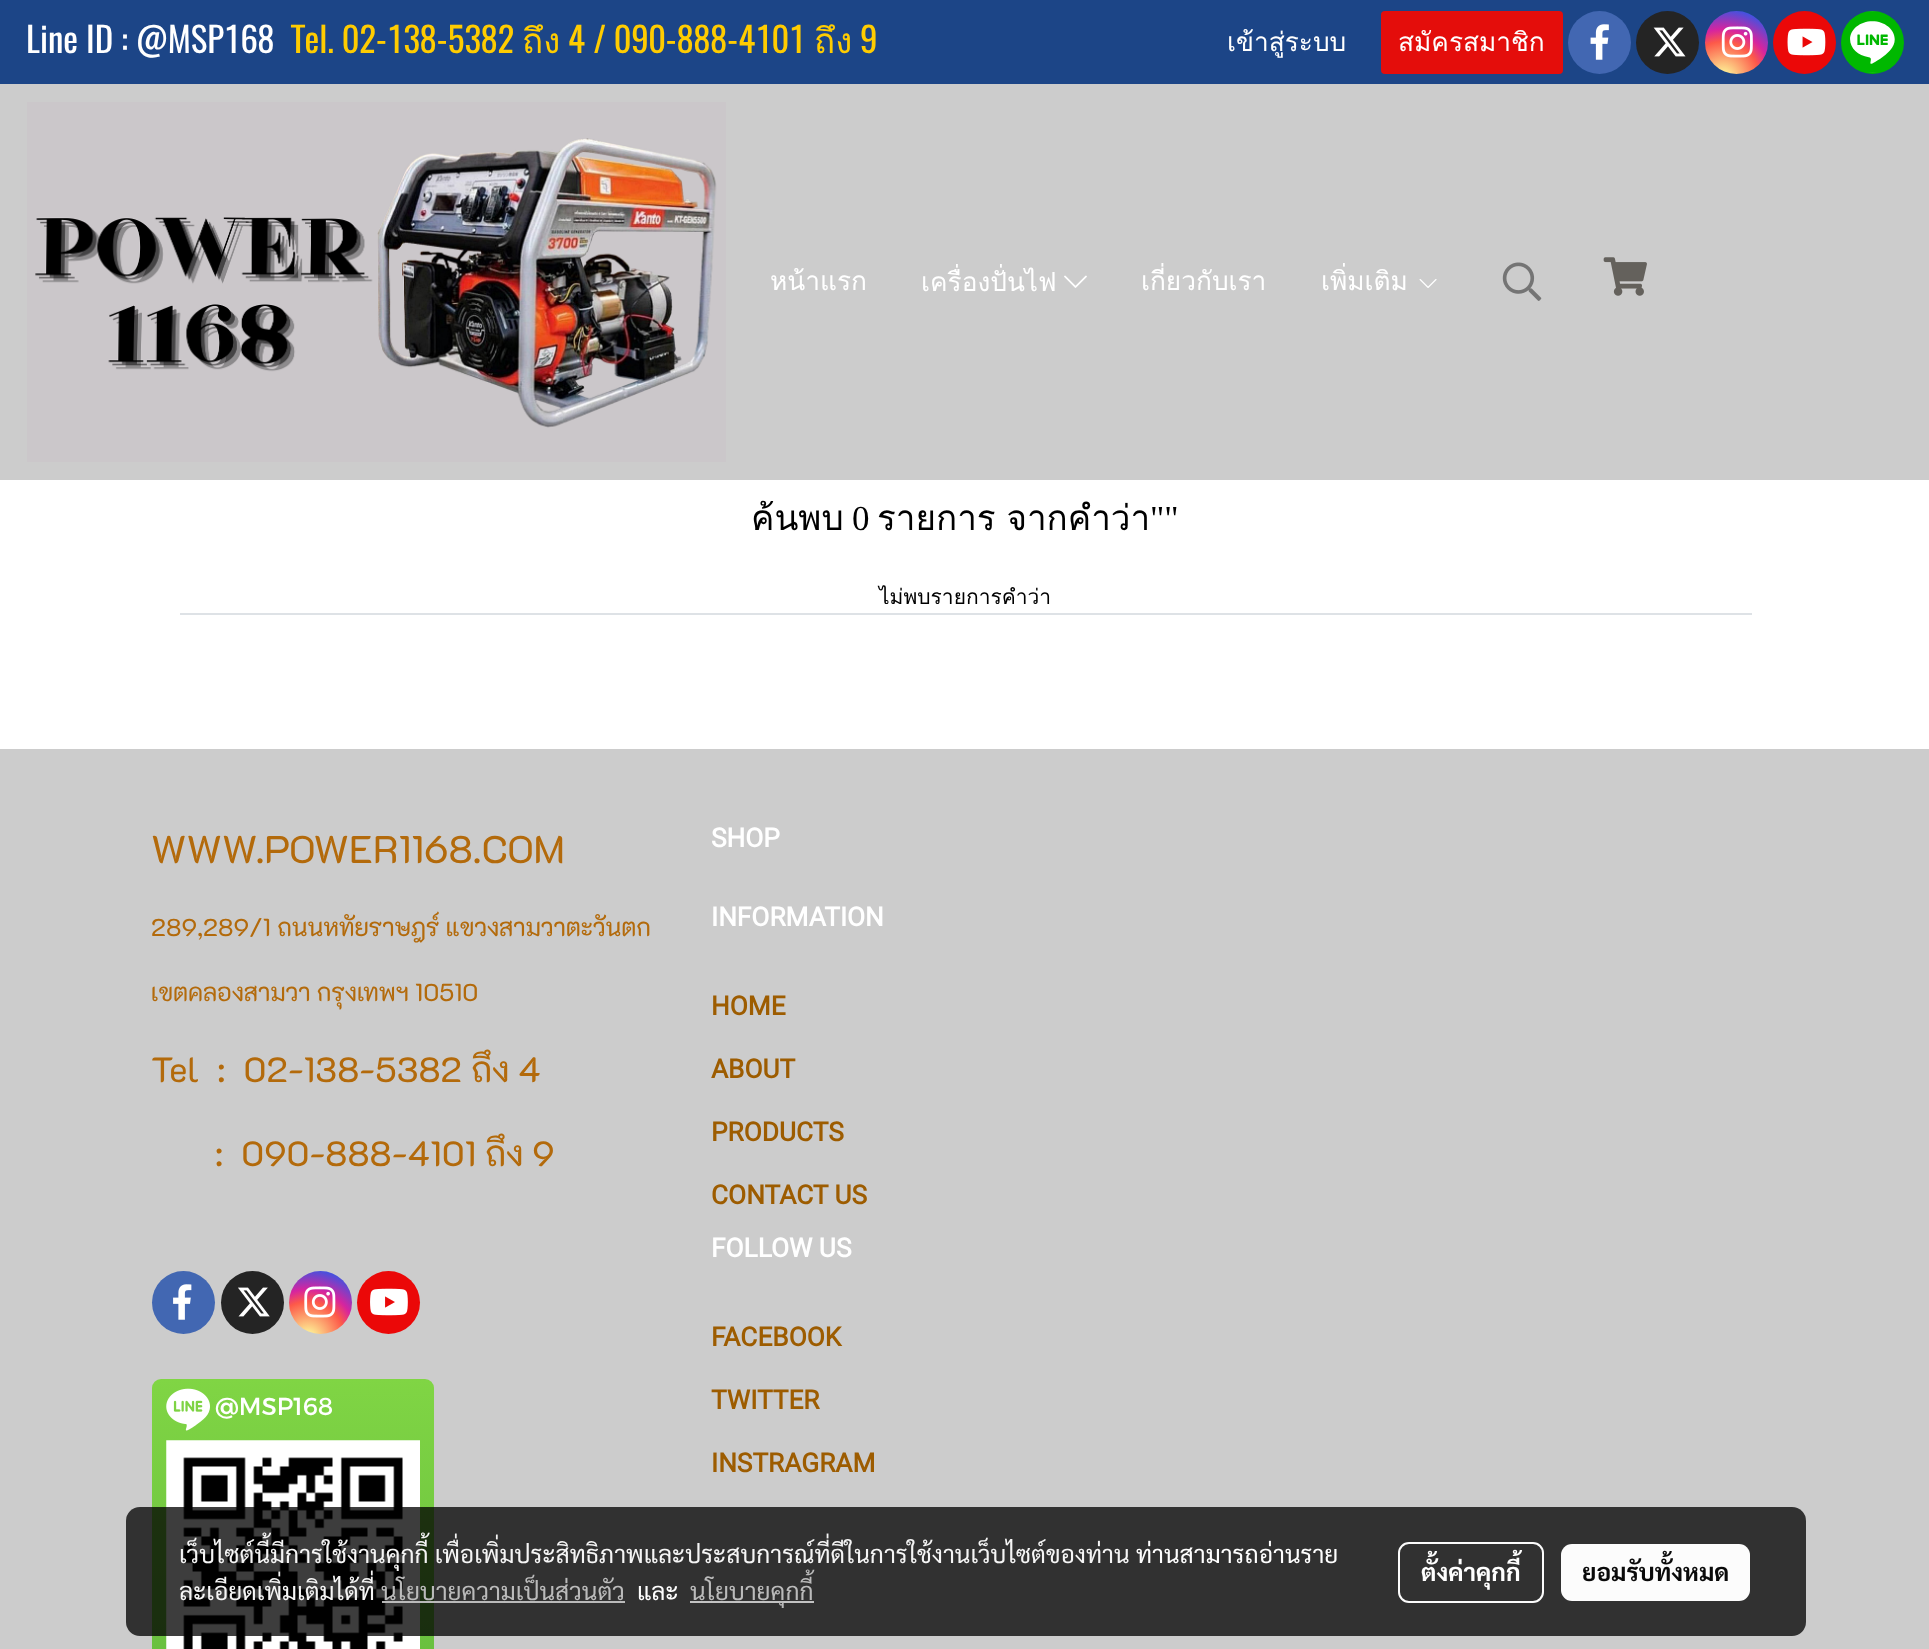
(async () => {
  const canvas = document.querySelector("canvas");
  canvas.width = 1929;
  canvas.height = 1649;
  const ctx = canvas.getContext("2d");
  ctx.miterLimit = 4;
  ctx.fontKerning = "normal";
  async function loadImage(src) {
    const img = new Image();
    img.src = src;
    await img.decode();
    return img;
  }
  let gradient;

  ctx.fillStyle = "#ffffff";
  ctx.fillRect(0, 0, 1929, 1649);
  ctx.fillStyle = "#cccccc";
  ctx.fillRect(0, 84, 1929, 396);
  ctx.fillStyle = "#1c4587";
  ctx.fillRect(0, 0, 1929, 84);
  ctx.fillStyle = "#e40d0b";
  ctx.beginPath();
  ctx.roundRect(1381, 11, 182, 63, 4);
  ctx.fill();
  ctx.fillStyle = "#4267b2";
  ctx.beginPath();
  ctx.arc(1599.5, 42.5, 31.5, 0, Math.PI * 2);
  ctx.fill();
  ctx.drawImage(await loadImage("img/1.png"), 1590, 24, 19, 36);
  ctx.fillStyle = "#242424";
  ctx.beginPath();
  ctx.arc(1667.5, 42.5, 31.5, 0, Math.PI * 2);
  ctx.fill();
  ctx.drawImage(await loadImage("img/2.png"), 1653, 27, 33, 30);
  gradient = ctx.createRadialGradient(1723, 78, 0, 1723, 78, 81);
  gradient.addColorStop(0, "#fdf497");
  gradient.addColorStop(0.05, "#fdf497");
  gradient.addColorStop(0.45, "#fd5949");
  gradient.addColorStop(0.6, "#d6249f");
  gradient.addColorStop(0.9, "#285aeb");
  ctx.fillStyle = gradient;
  ctx.beginPath();
  ctx.arc(1736.5, 42.5, 31.5, 0, Math.PI * 2);
  ctx.fill();
  ctx.drawImage(await loadImage("img/3.png"), 1721, 26, 32, 32);
  ctx.fillStyle = "#eb0808";
  ctx.beginPath();
  ctx.arc(1804.5, 42.5, 31.5, 0, Math.PI * 2);
  ctx.fill();
  ctx.drawImage(await loadImage("img/4.png"), 1787, 28, 39, 28);
  ctx.fillStyle = "#00b800";
  ctx.beginPath();
  ctx.arc(1872.5, 42.5, 31.5, 0, Math.PI * 2);
  ctx.fill();
  ctx.drawImage(await loadImage("img/5.png"), 1850, 11, 45, 62);
  ctx.drawImage(await loadImage("img/6.png"), 27, 102, 699, 360);
  ctx.drawImage(await loadImage("img/7.png"), 1064, 275, 23, 13);
  ctx.drawImage(await loadImage("img/8.png"), 1419, 279, 18, 9);
  ctx.drawImage(await loadImage("img/9.png"), 1502, 262, 40, 39);
  ctx.drawImage(await loadImage("img/10.png"), 1603, 257, 44, 39);
  ctx.fillStyle = "#dee2e6";
  ctx.fillRect(180, 613, 1572, 2);
  ctx.fillStyle = "#cccccc";
  ctx.fillRect(0, 749, 1929, 900);
  ctx.fillStyle = "#4267b2";
  ctx.beginPath();
  ctx.arc(183.5, 1302.5, 31.5, 0, Math.PI * 2);
  ctx.fill();
  ctx.drawImage(await loadImage("img/11.png"), 173, 1284, 19, 36);
  ctx.fillStyle = "#242424";
  ctx.beginPath();
  ctx.arc(252.5, 1302.5, 31.5, 0, Math.PI * 2);
  ctx.fill();
  ctx.drawImage(await loadImage("img/12.png"), 238, 1287, 32, 30);
  gradient = ctx.createRadialGradient(308, 1338, 0, 308, 1338, 81);
  gradient.addColorStop(0, "#fdf497");
  gradient.addColorStop(0.05, "#fdf497");
  gradient.addColorStop(0.45, "#fd5949");
  gradient.addColorStop(0.6, "#d6249f");
  gradient.addColorStop(0.9, "#285aeb");
  ctx.fillStyle = gradient;
  ctx.beginPath();
  ctx.arc(320.5, 1302.5, 31.5, 0, Math.PI * 2);
  ctx.fill();
  ctx.drawImage(await loadImage("img/13.png"), 304, 1286, 32, 32);
  ctx.fillStyle = "#eb0808";
  ctx.beginPath();
  ctx.arc(388.5, 1302.5, 31.5, 0, Math.PI * 2);
  ctx.fill();
  ctx.drawImage(await loadImage("img/14.png"), 370, 1288, 38, 28);
  gradient = ctx.createLinearGradient(293, 1379, 293, 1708);
  gradient.addColorStop(0, "#80d544");
  gradient.addColorStop(1, "#65bc3e");
  ctx.fillStyle = gradient;
  ctx.beginPath();
  ctx.roundRect(152, 1379, 282, 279, 9);
  ctx.fill();
  ctx.drawImage(await loadImage("img/15.png"), 166, 1388, 44, 43);
  ctx.drawImage(await loadImage("img/16.png"), 166, 1440, 254, 209);
  ctx.fillStyle = "rgba(0, 0, 0, 0.76)";
  ctx.beginPath();
  ctx.roundRect(126, 1507, 1680, 129, 14);
  ctx.fill();
  ctx.fillStyle = "rgba(194, 194, 194, 0.95)";
  ctx.fillRect(382, 1601, 243, 2);
  ctx.fillStyle = "#c3c3c3";
  ctx.fillRect(690, 1601, 124, 2);
  ctx.beginPath();
  ctx.roundRect(1399, 1543, 144, 59, 10);
  ctx.strokeStyle = "#fcfcfc";
  ctx.lineWidth = 2;
  ctx.stroke();
  ctx.fillStyle = "#fcfcfc";
  ctx.beginPath();
  ctx.roundRect(1561, 1544, 189, 57, 11);
  ctx.fill();
  ctx.font = "35px Oswald";
  ctx.fillStyle = "#ffffff";
  ctx.fillText("Line ID : @MSP168", 26, 53);
  ctx.fillStyle = "#ffcc00";
  ctx.fillText("Tel. 02-138-5382", 291, 53);
  ctx.font = "35px Loma";
  ctx.fillText("ถึง", 522, 53);
  ctx.font = "35px Oswald";
  ctx.fillText("4 / 090-888-4101", 568, 53);
  ctx.font = "35px Loma";
  ctx.fillText("ถึง", 814, 53);
  ctx.font = "35px Oswald";
  ctx.fillText("9", 860, 53);
  ctx.font = "26.25px Loma";
  ctx.fillStyle = "#ffffff";
  for (const [text, x, y] of [
    ["เข้าสู่ระบบ", 1227, 51],
    ["สมัครสมาชิก", 1398, 51],
    ["หน้าแรก", 770, 290],
    ["เครื่องปั่นไฟ", 921, 291],
    ["เกี่ยวกับเรา", 1141, 290],
    ["เพิ่มเติม", 1321, 290],
  ]) {
    ctx.fillText(text, x, y);
  }
  ctx.font = "35px Loma";
  ctx.fillStyle = "#000000";
  ctx.fillText("ค้นพบ", 751, 530);
  ctx.font = "35px Liberation Serif";
  ctx.fillText("0", 852, 530);
  ctx.wordSpacing = "-1px";
  ctx.font = "35px Loma";
  ctx.fillText("รายการ จากคำว่า", 877, 530);
  ctx.wordSpacing = "0px";
  ctx.font = "35px Liberation Serif";
  ctx.fillText("\"\"", 1150, 530);
  ctx.font = "21px Loma";
  ctx.fillText("ไม่พบรายการคำว่า", 879, 604);
  ctx.font = "38.5px 'K2D'";
  ctx.fillStyle = "#b36a0b";
  ctx.fillText("WWW.POWER1168.COM", 151, 863);
  ctx.font = "24.5px 'K2D'";
  ctx.fillText("289,289/1 ถนนหทัยราษฎร์ แขวงสามวาตะวันตก", 151, 936);
  ctx.fillText("เขตคลองสามวา กรุงเทพฯ 10510", 151, 1001);
  ctx.font = "35px 'K2D'";
  ctx.fillText("Tel  :  02-138-5382 ถึง 4", 151, 1082);
  ctx.fillText(":  090-888-4101 ถึง 9", 215, 1166);
  ctx.font = "24.5px Montserrat";
  ctx.fillStyle = "#ffffff";
  ctx.fillText("@MSP168", 215, 1415);
  ctx.font = "bold 26.25px Roboto";
  ctx.fillText("SHOP", 711, 847);
  ctx.fillText("INFORMATION", 711, 926);
  ctx.fillStyle = "#9d5c00";
  for (const [text, x, y] of [
    ["HOME", 711, 1015],
    ["ABOUT", 711, 1078],
    ["PRODUCTS", 711, 1141],
    ["CONTACT US", 711, 1204],
  ]) {
    ctx.fillText(text, x, y);
  }
  ctx.fillStyle = "#ffffff";
  ctx.fillText("FOLLOW US", 711, 1257);
  ctx.fillStyle = "#9d5c00";
  for (const [text, x, y] of [
    ["FACEBOOK", 711, 1346],
    ["TWITTER", 711, 1409],
    ["INSTRAGRAM", 711, 1472],
  ]) {
    ctx.fillText(text, x, y);
  }
  ctx.font = "24.5px Sarabun";
  ctx.fillStyle = "#f5f5f5";
  ctx.fillText("เว็บไซต์นี้มีการใช้งานคุกกี้ เพื่อเพิ่มประสิทธิภาพและประสบการณ์ที่ดีในการใช้งานเว็บไซต์ของท่าน", 179, 1563);
  ctx.fillStyle = "#ffffff";
  ctx.fillText("ท่านสามารถอ่านราย", 1136, 1563);
  ctx.fillStyle = "#f5f5f5";
  ctx.fillText("ละเอียดเพิ่มเติมได้ที่", 179, 1600);
  ctx.fillStyle = "#bbbbbb";
  ctx.fillText("นโยบายความเป็นส่วนตัว", 381, 1600);
  ctx.fillStyle = "#ffffff";
  ctx.fillText("และ", 637, 1600);
  ctx.fillStyle = "#bbbbbb";
  ctx.fillText("นโยบายคุกกี้", 690, 1600);
  ctx.font = "bold 24.5px Sarabun";
  ctx.fillStyle = "#ffffff";
  ctx.fillText("ตั้งค่าคุกกี้", 1421, 1581);
  ctx.fillStyle = "#0a0a0a";
  ctx.fillText("ยอมรับทั้งหมด", 1582, 1581);
})();
